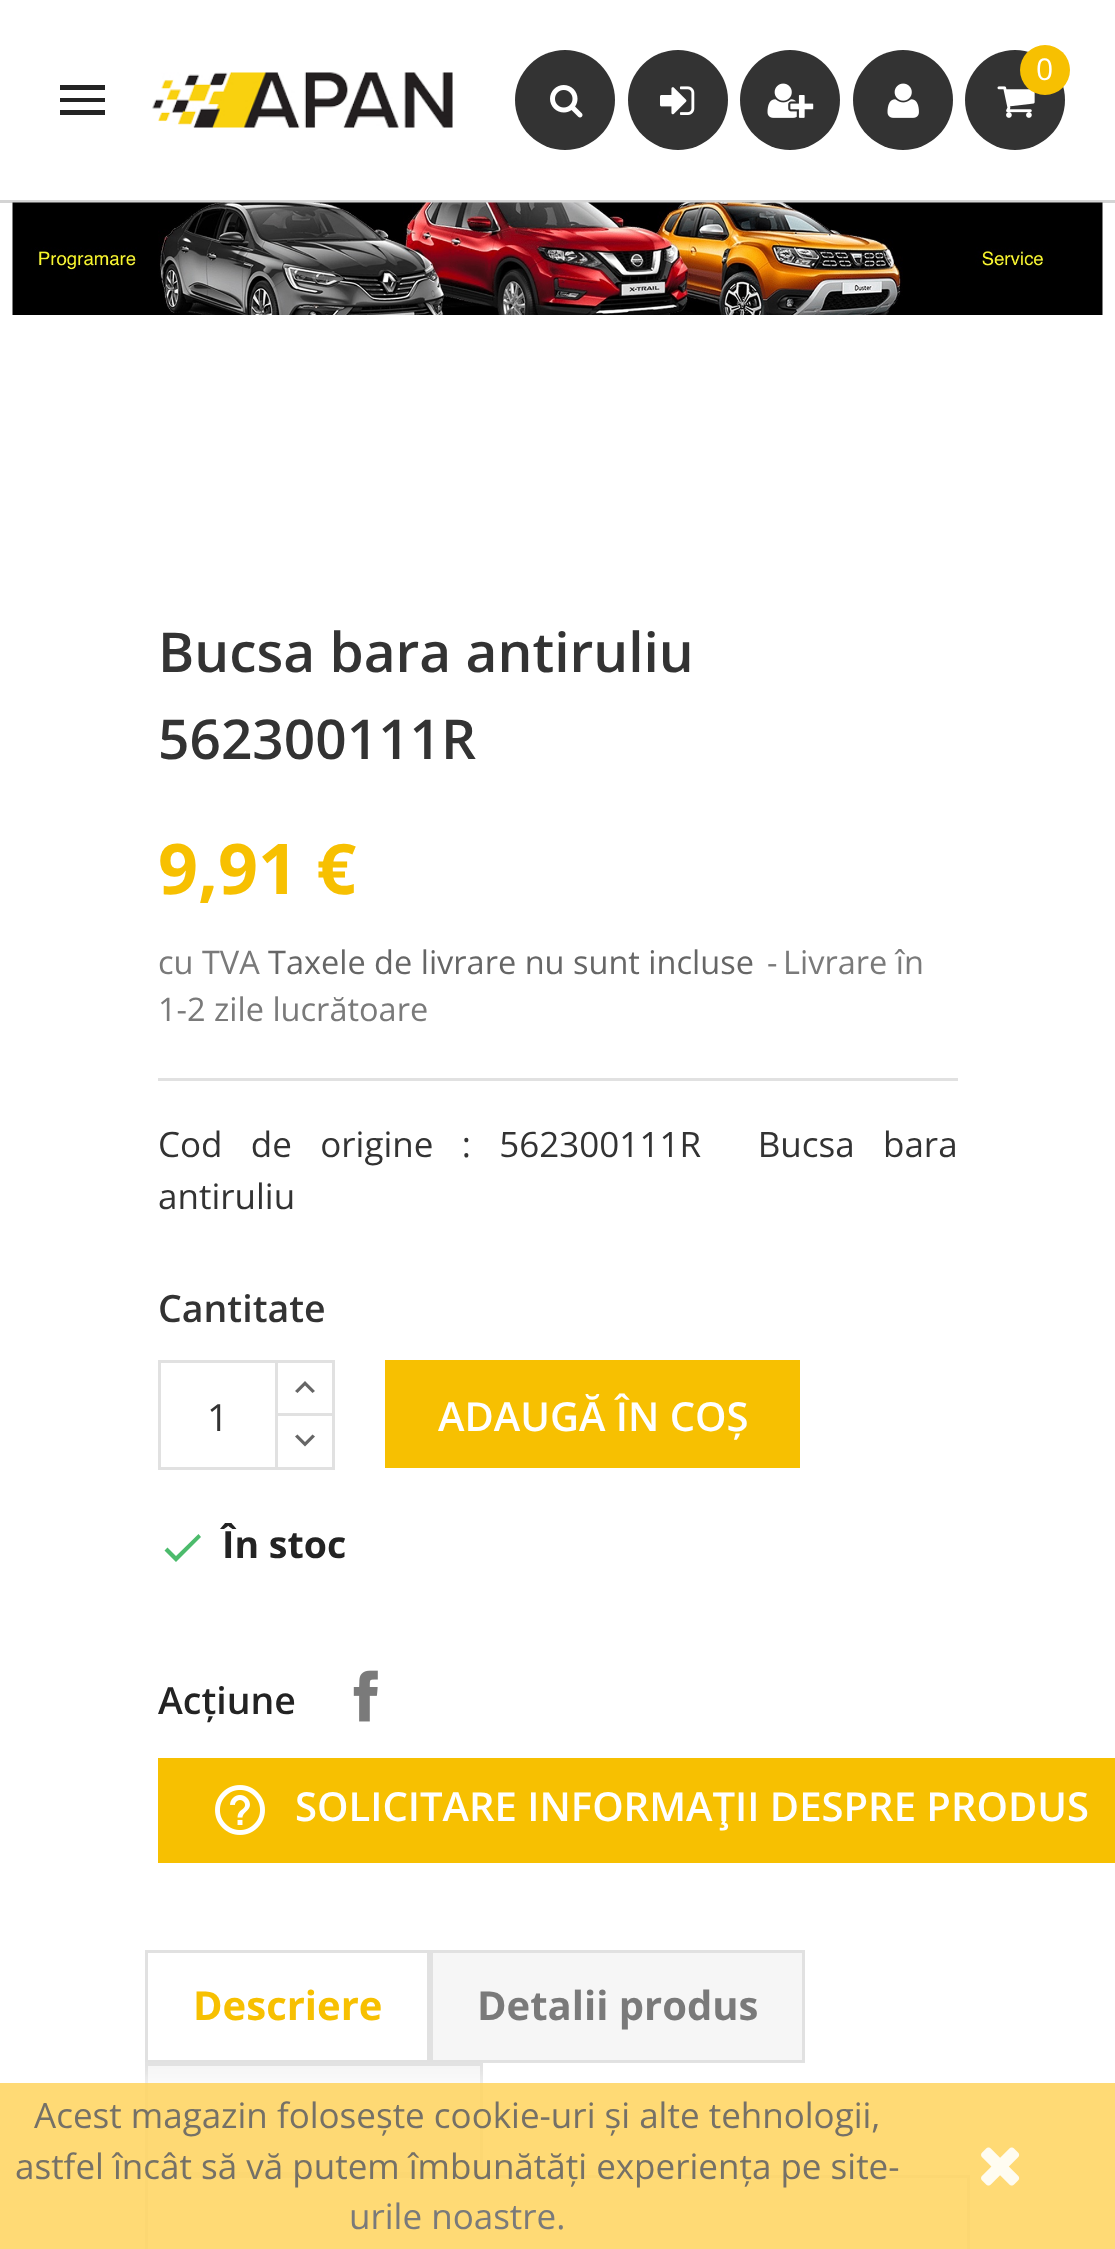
(async () => {
  const canvas = document.querySelector("canvas");
  canvas.width = 1115;
  canvas.height = 2249;
  const ctx = canvas.getContext("2d");
  ctx.miterLimit = 4;
  ctx.fontKerning = "normal";
  async function loadImage(src) {
    const img = new Image();
    img.src = src;
    await img.decode();
    return img;
  }
  let path;

  ctx.fillStyle = "#ffffff";
  ctx.fillRect(0, 0, 1115, 2249);
  ctx.fillStyle = "#d4d4d4";
  ctx.fillRect(0, 200, 1115, 3);
  ctx.fillStyle = "#333333";
  ctx.beginPath();
  ctx.arc(565, 100, 50, 0, Math.PI * 2);
  ctx.fill();
  ctx.drawImage(await loadImage("img/1.png"), 550, 85, 33, 33);
  ctx.beginPath();
  ctx.arc(678, 100, 50, 0, Math.PI * 2);
  ctx.fill();
  ctx.drawImage(await loadImage("img/2.png"), 660, 86, 35, 29);
  ctx.beginPath();
  ctx.arc(790, 100, 50, 0, Math.PI * 2);
  ctx.fill();
  ctx.drawImage(await loadImage("img/3.png"), 767, 83, 47, 35);
  ctx.beginPath();
  ctx.arc(903, 100, 50, 0, Math.PI * 2);
  ctx.fill();
  ctx.drawImage(await loadImage("img/4.png"), 887, 83, 32, 35);
  ctx.beginPath();
  ctx.arc(1015, 100, 50, 0, Math.PI * 2);
  ctx.fill();
  ctx.drawImage(await loadImage("img/5.png"), 997, 86, 38, 32);
  ctx.fillStyle = "#f7c001";
  ctx.beginPath();
  ctx.arc(1045, 70, 25, 0, Math.PI * 2);
  ctx.fill();
  ctx.fillStyle = "#232323";
  path = new Path2D("M60 85H105V90H60ZM60 102V98H105V102ZM60 115V110H105V115Z");
  ctx.fill(path);
  ctx.drawImage(await loadImage("img/6.png"), 152, 72, 301, 56);
  ctx.drawImage(await loadImage("img/7.png"), 12, 202, 1091, 113);
  ctx.fillStyle = "#e1e1e1";
  ctx.fillRect(158, 1078, 800, 3);
  ctx.strokeStyle = "#e1e1e1";
  ctx.lineWidth = 3;
  ctx.strokeRect(276.5, 1361.5, 57, 55);
  ctx.fillStyle = "#ffffff";
  ctx.fillRect(278, 1416, 54, 2);
  ctx.strokeRect(276.5, 1414.5, 57, 54);
  ctx.strokeRect(159.5, 1361.5, 117, 107);
  ctx.fillStyle = "#666666";
  path = new Path2D("M305 1381L315 1391L312.5 1393L305 1385.5L297.5 1393L295 1391Z");
  ctx.fill(path);
  path = new Path2D("M312.5 1434.5L315 1436.5L305 1446.5L295 1436.5L297.5 1434.5L305 1442Z");
  ctx.fill(path);
  ctx.fillStyle = "#f7c001";
  ctx.fillRect(385, 1360, 415, 108);
  ctx.fillStyle = "#4cbb6c";
  path = new Path2D("M176 1556L198.5 1534L201 1537L176 1562L164.5 1550.5L167.5 1547.5Z");
  ctx.fill(path);
  ctx.drawImage(await loadImage("img/8.png"), 353, 1670, 25, 52);
  ctx.fillStyle = "#f7c001";
  ctx.fillRect(158, 1758, 957, 105);
  ctx.drawImage(await loadImage("img/9.png"), 215, 1785, 50, 50);
  ctx.strokeRect(146.5, 1951.5, 282, 110);
  ctx.fillStyle = "#f6f6f6";
  ctx.beginPath();
  ctx.rect(431.5, 1951.5, 372, 110);
  ctx.fill();
  ctx.stroke();
  ctx.beginPath();
  ctx.rect(146.5, 2064.5, 335, 109);
  ctx.fill();
  ctx.stroke();
  ctx.strokeRect(146.5, 2176.5, 822, 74);
  ctx.save();
  ctx.beginPath();
  ctx.rect(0, 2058, 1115, 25);
  ctx.clip();
  ctx.fillStyle = "rgba(255, 255, 255, 0.9)";
  ctx.filter = "blur(12.5px)";
  ctx.beginPath();
  ctx.rect(0, 2083, 1115, 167);
  ctx.fill();
  ctx.filter = "none";
  ctx.restore();
  ctx.fillStyle = "rgba(255, 214, 102, 0.9)";
  ctx.fillRect(0, 2083, 1115, 166);
  ctx.drawImage(await loadImage("img/10.png"), 981, 2147, 39, 39);
  ctx.font = "30px Open Sans";
  ctx.fillStyle = "#ffffff";
  ctx.fillText("0", 1036, 80);
  ctx.font = "600 55px Open Sans";
  ctx.fillStyle = "#333333";
  ctx.fillText("Bucsa bara antiruliu", 158, 672);
  ctx.fillText("562300111R", 158, 759);
  ctx.font = "bold 70px Open Sans";
  ctx.fillStyle = "#f7c001";
  ctx.fillText("9,91 €", 158, 894);
  ctx.font = "32.5px Open Sans";
  ctx.fillStyle = "#7a7a7a";
  ctx.fillText("cu TVA", 158, 974);
  ctx.fillStyle = "#666666";
  ctx.fillText("Taxele de livrare nu sunt incluse", 268, 974);
  ctx.fillStyle = "#7a7a7a";
  for (const [text, x, y] of [
    ["-", 767, 974],
    ["Livrare în", 783, 974],
    ["1-2 zile lucrătoare", 158, 1021],
  ]) {
    ctx.fillText(text, x, y);
  }
  ctx.wordSpacing = "19.25px";
  ctx.font = "35px Open Sans";
  ctx.fillStyle = "#333333";
  ctx.fillText("Cod de origine : 562300111R  Bucsa bara", 158, 1157);
  ctx.wordSpacing = "0px";
  ctx.fillText("antiruliu", 158, 1209);
  ctx.font = "600 37.5px Open Sans";
  ctx.fillText("Cantitate", 158, 1322);
  ctx.font = "37.5px Open Sans";
  ctx.fillText("1", 207, 1431);
  ctx.font = "600 40px Open Sans";
  ctx.fillStyle = "#ffffff";
  ctx.fillText("ADAUGĂ ÎN COȘ", 438, 1431);
  ctx.font = "bold 37.5px Open Sans";
  ctx.fillStyle = "#232323";
  ctx.fillText("În stoc", 222, 1558);
  ctx.font = "600 37.5px Open Sans";
  ctx.fillText("Acțiune", 158, 1714);
  ctx.font = "600 40px Open Sans";
  ctx.fillStyle = "#ffffff";
  ctx.fillText("SOLICITARE INFORMAŢII DESPRE PRODUS", 295, 1821);
  ctx.font = "bold 40px Open Sans";
  ctx.fillStyle = "#f7c001";
  ctx.fillText("Descriere", 193, 2020);
  ctx.fillStyle = "#7a7a7a";
  ctx.fillText("Detalii produs", 477, 2020);
  ctx.font = "35px Open Sans";
  ctx.fillStyle = "#757167";
  ctx.fillText("Acest magazin folosește cookie-uri și alte tehnologii,", 34, 2128);
  ctx.fillText("astfel încât să vă putem îmbunătăți experiența pe site-", 15, 2179);
  ctx.fillStyle = "#7a7a7a";
  ctx.fillText("urile noastre.", 349, 2229);
})();
